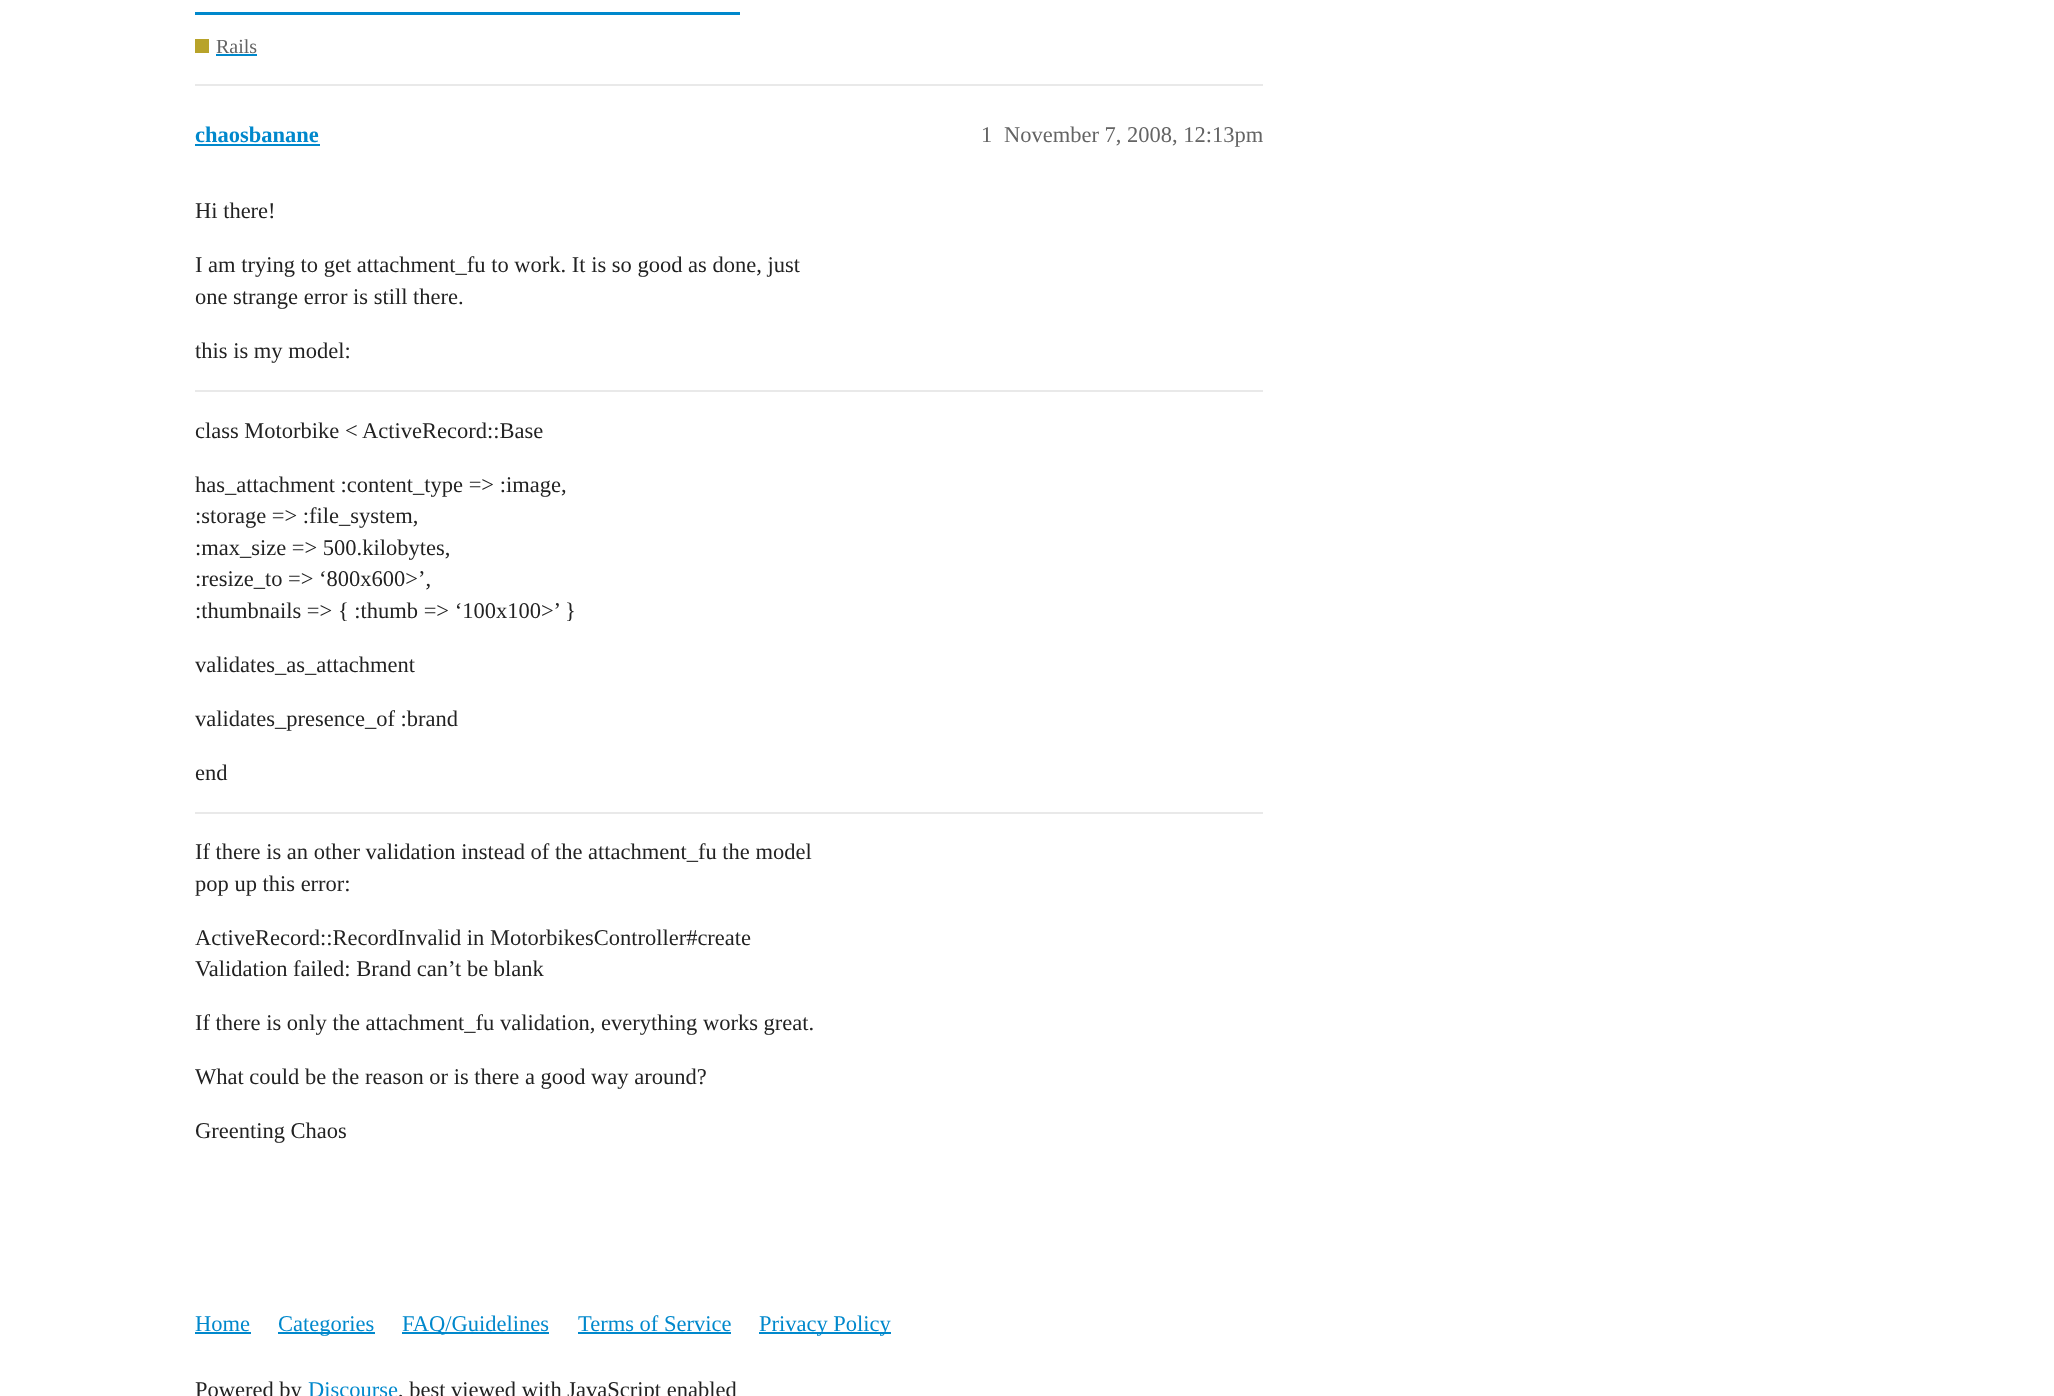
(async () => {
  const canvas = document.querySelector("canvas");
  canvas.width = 2054;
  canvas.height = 1396;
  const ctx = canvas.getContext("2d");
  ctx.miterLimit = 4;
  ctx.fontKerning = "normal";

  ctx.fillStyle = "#ffffff";
  ctx.fillRect(0, 0, 2054, 1396);
  for (const [x, y, w, h, color] of [
    [195, 12, 545, 3, "#0088cc"],
    [195, 39, 14, 14, "#b8a32a"],
    [216, 54, 41, 2, "#0088cc"],
    [195, 84, 1068, 2, "#e9e9e9"],
    [195, 144, 125, 2, "#0088cc"],
    [195, 390, 1068, 2, "#e9e9e9"],
    [195, 812, 1068, 2, "#e9e9e9"],
    [195, 1332, 56, 2, "#0088cc"],
    [278, 1332, 97, 2, "#0088cc"],
    [402, 1332, 147, 2, "#0088cc"],
    [578, 1332, 153, 2, "#0088cc"],
    [759, 1332, 132, 2, "#0088cc"],
  ]) {
    ctx.fillStyle = color;
    ctx.fillRect(x, y, w, h);
  }
  ctx.font = "20px Liberation Serif";
  ctx.fillStyle = "#646464";
  ctx.fillText("Rails", 216, 53);
  ctx.font = "bold 22.5px Liberation Serif";
  ctx.fillStyle = "#0088cc";
  ctx.fillText("chaosbanane", 195, 142);
  ctx.font = "22.5px Liberation Serif";
  ctx.fillStyle = "#646464";
  ctx.fillText("1", 981, 142);
  ctx.fillText("November 7, 2008, 12:13pm", 1004, 142);
  ctx.fillStyle = "#222222";
  for (const [text, x, y] of [
    ["Hi there!", 195, 218],
    ["I am trying to get attachment_fu to work. It is so good as done, just", 195, 272],
    ["one strange error is still there.", 195, 304],
    ["this is my model:", 195, 358],
    ["class Motorbike < ActiveRecord::Base", 195, 438],
    ["has_attachment :content_type => :image,", 195, 492],
    [":storage => :file_system,", 195, 523],
    [":max_size => 500.kilobytes,", 195, 555],
    [":resize_to => ‘800x600>’,", 195, 586],
    [":thumbnails => { :thumb => ‘100x100>’ }", 195, 618],
    ["validates_as_attachment", 195, 672],
    ["validates_presence_of :brand", 195, 726],
    ["end", 195, 780],
    ["If there is an other validation instead of the attachment_fu the model", 195, 859],
    ["pop up this error:", 195, 891],
    ["ActiveRecord::RecordInvalid in MotorbikesController#create", 195, 945],
    ["Validation failed: Brand can’t be blank", 195, 976],
    ["If there is only the attachment_fu validation, everything works great.", 195, 1030],
    ["What could be the reason or is there a good way around?", 195, 1084],
    ["Greenting Chaos", 195, 1138],
  ]) {
    ctx.fillText(text, x, y);
  }
  ctx.fillStyle = "#0088cc";
  for (const [text, x, y] of [
    ["Home", 195, 1331],
    ["Categories", 278, 1331],
    ["FAQ/Guidelines", 402, 1331],
    ["Terms of Service", 578, 1331],
    ["Privacy Policy", 759, 1331],
  ]) {
    ctx.fillText(text, x, y);
  }
  ctx.fillStyle = "#222222";
  ctx.fillText("Powered by", 195, 1397);
  ctx.fillStyle = "#0088cc";
  ctx.fillText("Discourse", 308, 1397);
  ctx.fillStyle = "#222222";
  ctx.fillText(", best viewed with JavaScript enabled", 398, 1397);
})();
